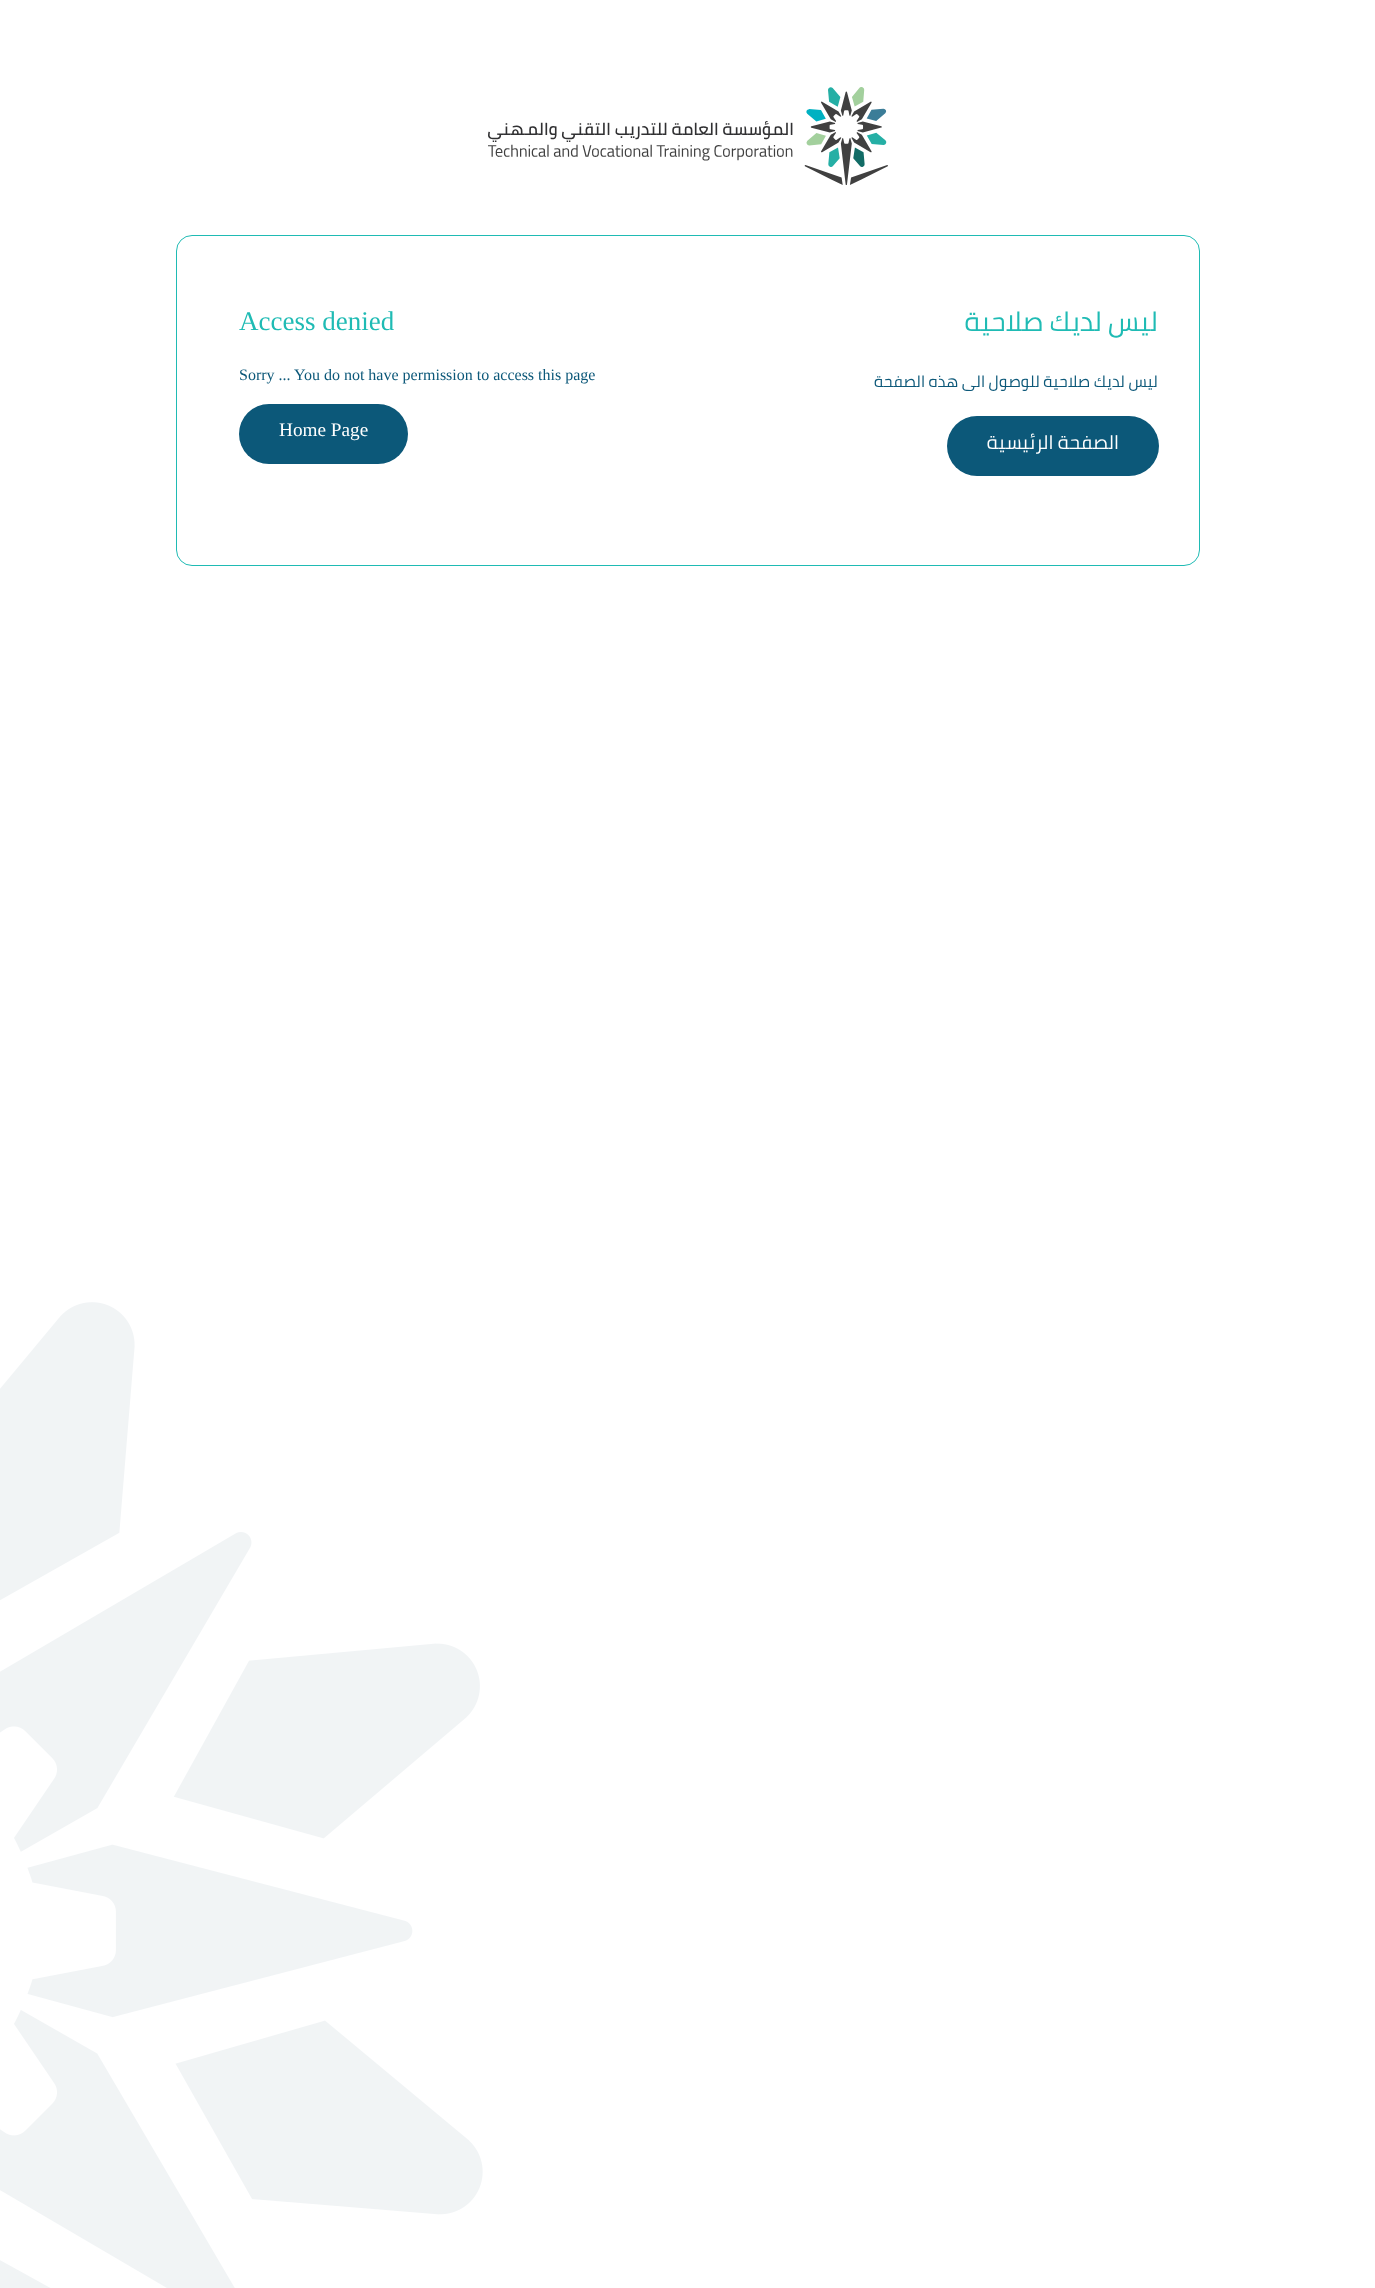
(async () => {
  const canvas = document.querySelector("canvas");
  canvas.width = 1375;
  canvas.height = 2288;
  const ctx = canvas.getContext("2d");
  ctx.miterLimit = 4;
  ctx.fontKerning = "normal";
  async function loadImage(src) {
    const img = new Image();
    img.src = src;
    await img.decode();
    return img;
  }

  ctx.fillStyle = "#ffffff";
  ctx.fillRect(0, 0, 1375, 2288);
  ctx.drawImage(await loadImage("img/1.png"), 0, 1302, 483, 986);
  ctx.drawImage(await loadImage("img/2.png"), 488, 87, 400, 98);
  ctx.beginPath();
  ctx.roundRect(176.5, 235.5, 1023, 330, 15.5);
  ctx.strokeStyle = "#1fbbb4";
  ctx.stroke();
  ctx.fillStyle = "#0c5879";
  ctx.beginPath();
  ctx.roundRect(239, 404, 169, 60, 30);
  ctx.fill();
  ctx.beginPath();
  ctx.roundRect(947, 416, 212, 60, 30);
  ctx.fill();
  ctx.font = "27px Liberation Serif";
  ctx.fillStyle = "#1fbbb4";
  ctx.fillText("Access denied", 239, 330);
  ctx.font = "16px Liberation Serif";
  ctx.fillStyle = "#0c5879";
  ctx.fillText("Sorry ... You do not have permission to access this page", 239, 380);
  ctx.font = "19.25px Liberation Serif";
  ctx.fillStyle = "#ffffff";
  ctx.fillText("Home Page", 279, 436);
  ctx.direction = "rtl";
  ctx.font = "27px Cairo";
  ctx.fillStyle = "#1fbbb4";
  ctx.fillText("ليس لديك صلاحية", 1158, 331);
  ctx.font = "16px Cairo";
  ctx.fillStyle = "#0c5879";
  ctx.fillText("ليس لديك صلاحية للوصول الى هذه الصفحة", 1158, 387);
  ctx.font = "19.25px Cairo";
  ctx.fillStyle = "#ffffff";
  ctx.fillText("الصفحة الرئيسية", 1119, 449);
})();
